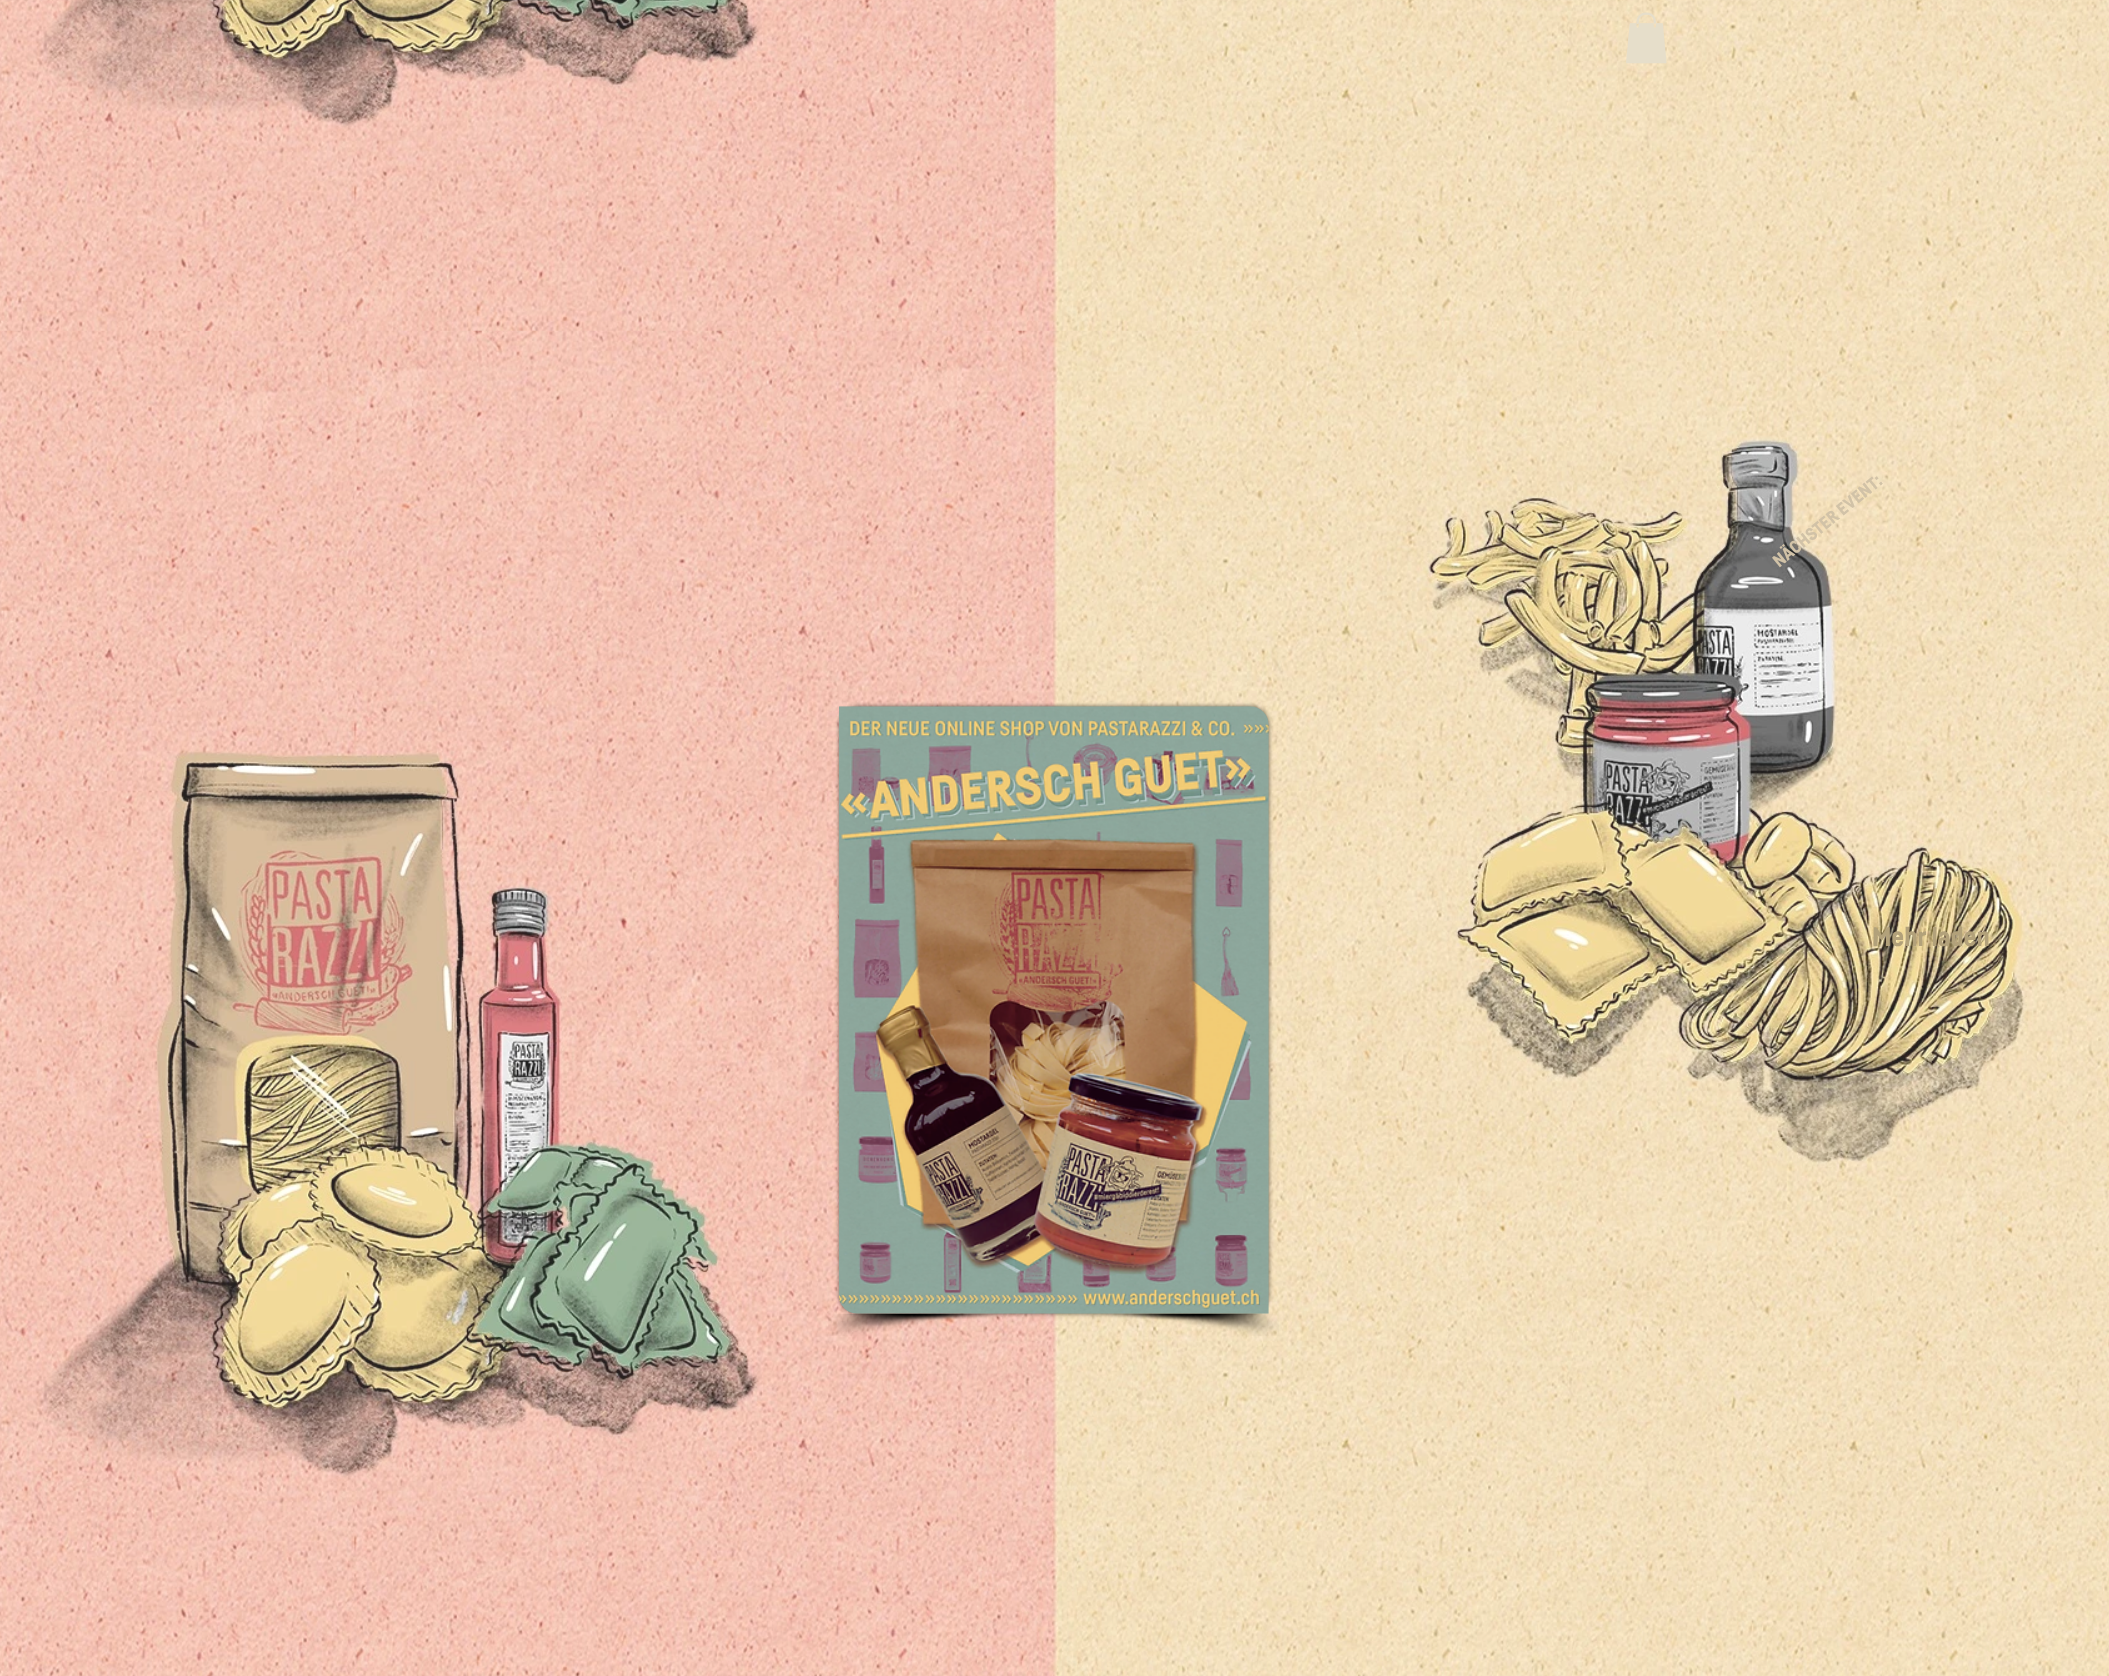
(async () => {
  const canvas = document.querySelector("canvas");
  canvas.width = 2109;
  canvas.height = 1676;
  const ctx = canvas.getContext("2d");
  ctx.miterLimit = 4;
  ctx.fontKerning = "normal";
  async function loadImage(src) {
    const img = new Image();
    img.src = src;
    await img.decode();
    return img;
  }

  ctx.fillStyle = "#ffffff";
  ctx.fillRect(0, 0, 2109, 1676);
  ctx.drawImage(await loadImage("img/1.png"), 0, 0, 2109, 1676);
  ctx.drawImage(await loadImage("img/2.png"), 1626, 12, 41, 52);
  ctx.fillStyle = "rgba(0, 0, 0, 0.5)";
  ctx.filter = "blur(2px)";
  ctx.beginPath();
  ctx.roundRect(839, 706, 430, 608, 19);
  ctx.fill();
  ctx.filter = "none";
  ctx.drawImage(await loadImage("img/3.png"), 838, 706, 431, 608);
  ctx.drawImage(await loadImage("img/4.png"), 828, 1313, 186, 23);
  ctx.drawImage(await loadImage("img/5.png"), 1093, 1313, 186, 23);
  ctx.font = "900 17.5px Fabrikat";
  ctx.fillStyle = "#d1c2a7";
  ctx.save();
  ctx.translate(1779, 568);
  ctx.rotate(-39.1 * Math.PI / 180);
  ctx.fillText("NÄCHSTER EVENT:", 0, 0);
  ctx.restore();
  ctx.font = "900 26.25px Fabrikat";
  ctx.fillStyle = "#b2a17a";
  ctx.fillText("Mehr laden", 1872, 946);
})();
